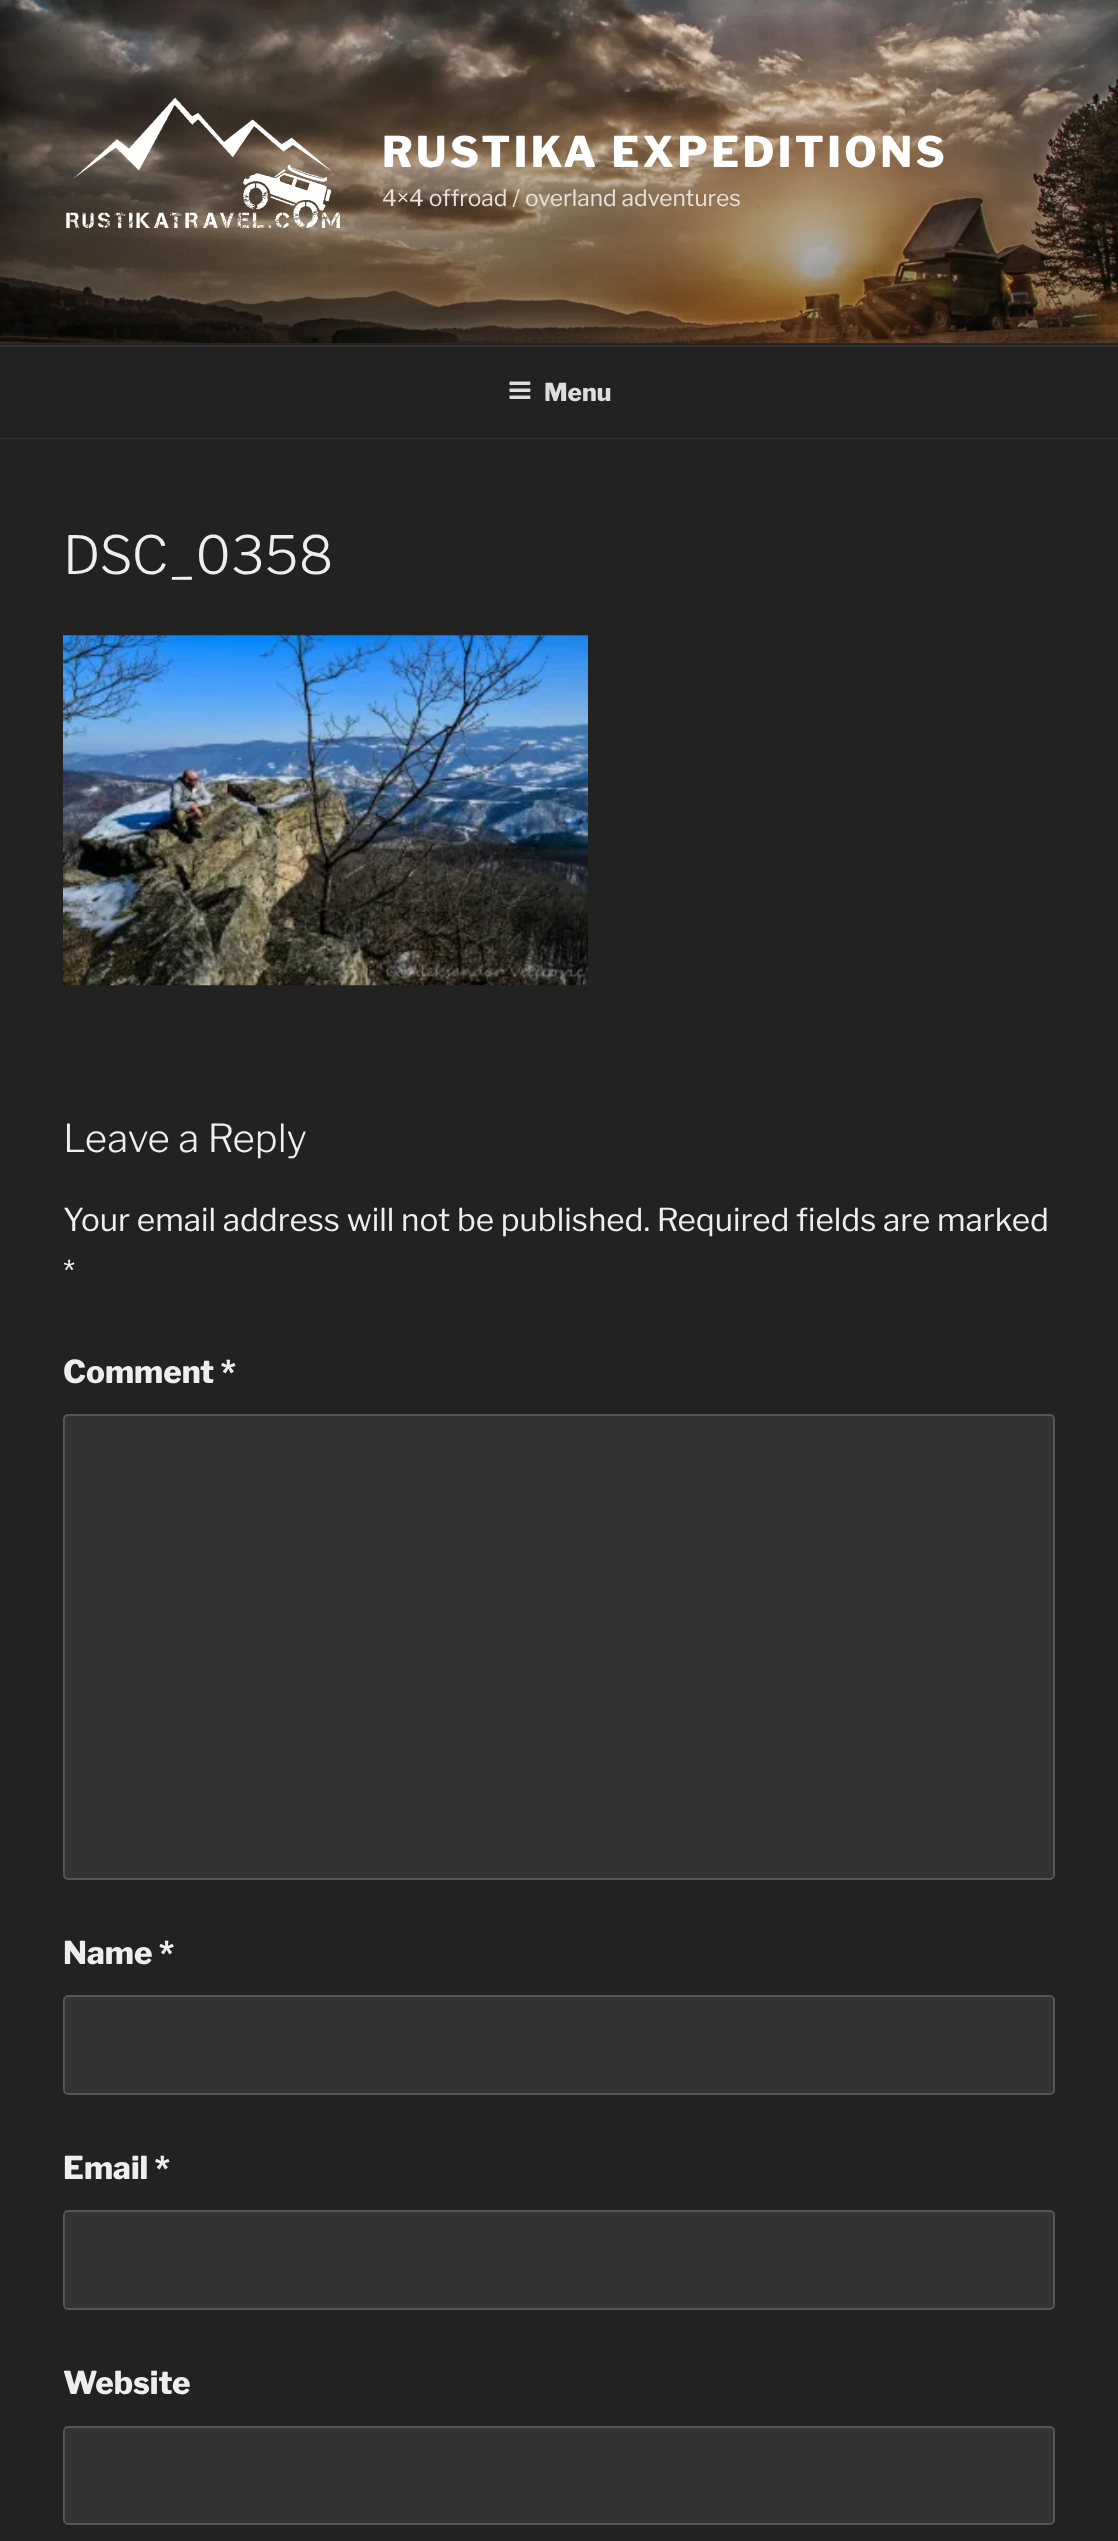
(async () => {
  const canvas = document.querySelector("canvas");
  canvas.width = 1118;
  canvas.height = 2541;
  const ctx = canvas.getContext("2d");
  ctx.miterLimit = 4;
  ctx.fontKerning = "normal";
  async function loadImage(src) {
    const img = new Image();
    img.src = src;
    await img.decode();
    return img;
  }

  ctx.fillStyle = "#262626";
  ctx.fillRect(0, 0, 1118, 2541);
  ctx.drawImage(await loadImage("img/1.png"), 0, 0, 1118, 343);
  ctx.drawImage(await loadImage("img/2.png"), 66, 97, 274, 132);
  for (const [x, y, w, h, color] of [
    [0, 347, 1118, 91, "#222222"],
    [0, 345, 1118, 2, "#333333"],
    [0, 438, 1118, 1, "#333333"],
  ]) {
    ctx.fillStyle = color;
    ctx.fillRect(x, y, w, h);
  }
  ctx.drawImage(await loadImage("img/3.png"), 509, 381, 22, 18);
  ctx.fillStyle = "#222222";
  ctx.fillRect(0, 439, 1118, 2102);
  ctx.drawImage(await loadImage("img/4.png"), 63, 635, 525, 351);
  ctx.fillStyle = "#333333";
  ctx.beginPath();
  ctx.roundRect(64, 1415, 990, 464, 4);
  ctx.fill();
  ctx.strokeStyle = "#555555";
  ctx.lineWidth = 2;
  ctx.stroke();
  ctx.beginPath();
  ctx.roundRect(64, 1996, 990, 98, 4);
  ctx.fill();
  ctx.stroke();
  ctx.beginPath();
  ctx.roundRect(64, 2211, 990, 98, 4);
  ctx.fill();
  ctx.stroke();
  ctx.beginPath();
  ctx.roundRect(64, 2427, 990, 97, 4);
  ctx.fill();
  ctx.stroke();
  ctx.letterSpacing = "3.4px";
  ctx.font = "100 42px Libre Franklin";
  ctx.fillStyle = "#ffffff";
  ctx.fillText("RUSTIKA EXPEDITIONS", 382, 167);
  ctx.letterSpacing = "0px";
  ctx.font = "100 22.75px 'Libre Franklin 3'";
  ctx.fillStyle = "#e5e1dc";
  ctx.fillText("4×4 offroad / overland adventures", 382, 206);
  ctx.font = "100 24.5px Libre Franklin";
  ctx.fillStyle = "#dddddd";
  ctx.fillText("Menu", 544, 401);
  ctx.font = "100 52.5px 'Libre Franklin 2'";
  ctx.fillStyle = "#eeeeee";
  ctx.fillText("DSC_0358", 63, 574);
  ctx.font = "100 38.5px 'Libre Franklin 2'";
  ctx.fillText("Leave a Reply", 63, 1152);
  ctx.font = "100 31.5px 'Libre Franklin 3'";
  ctx.fillText("Your email address will not be published. Required fields are marked", 63, 1231);
  ctx.fillText("*", 63, 1283);
  ctx.font = "100 31.5px Libre Franklin";
  for (const [text, x, y] of [
    ["Comment *", 63, 1383],
    ["Name *", 63, 1964],
    ["Email *", 63, 2179],
    ["Website", 63, 2394],
  ]) {
    ctx.fillText(text, x, y);
  }
})();
